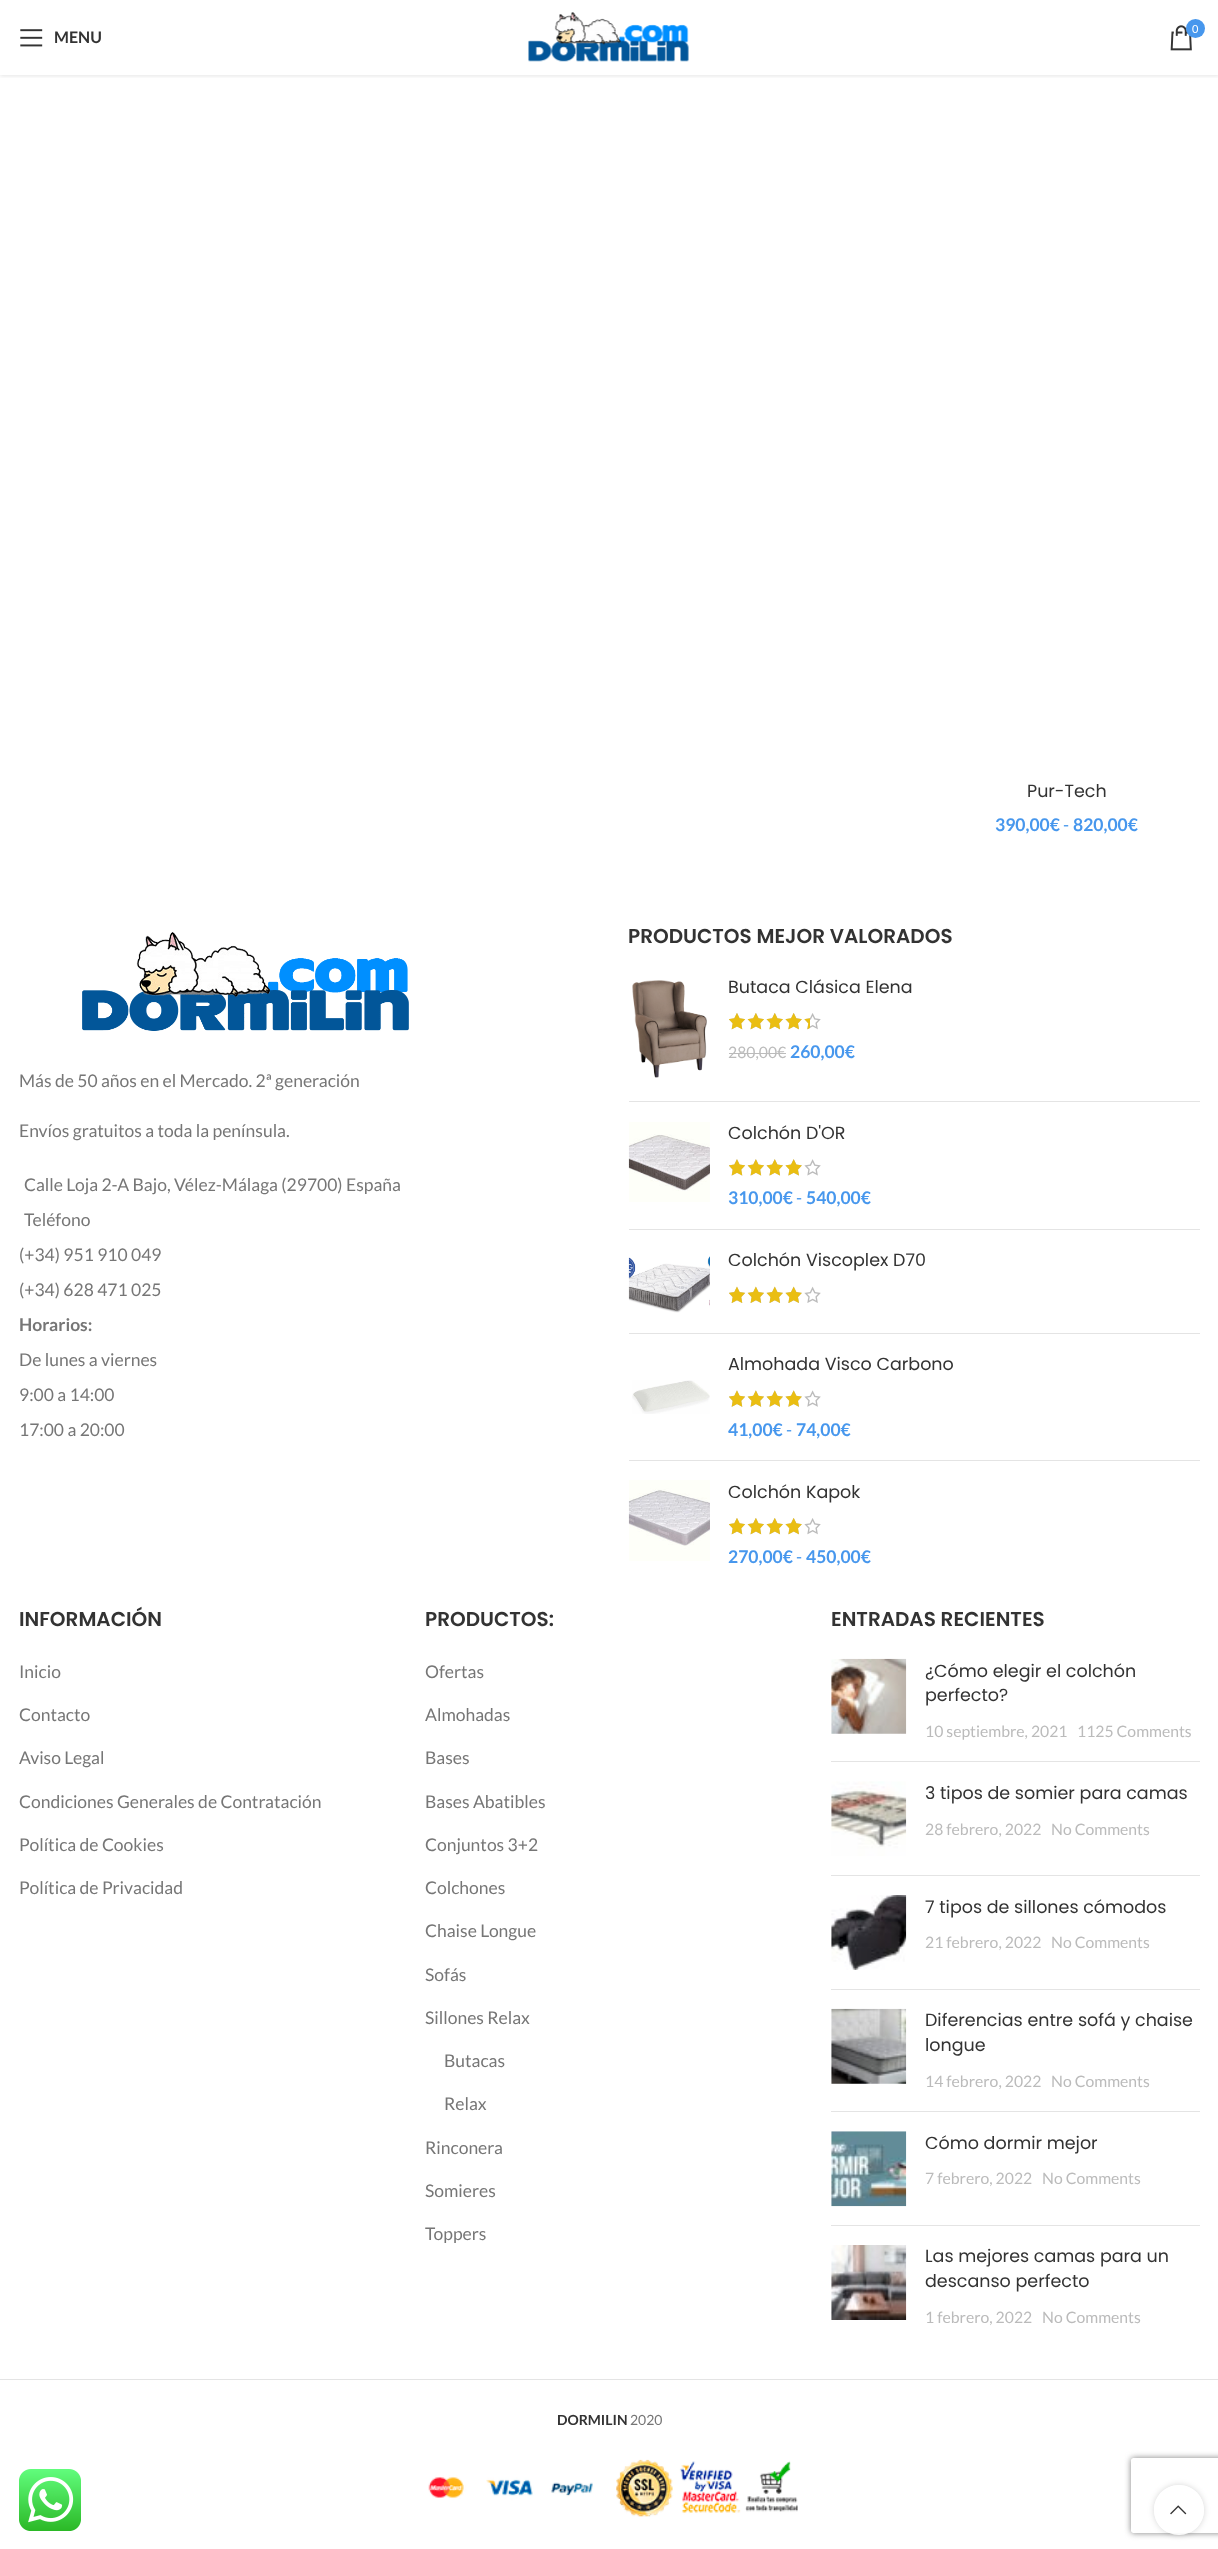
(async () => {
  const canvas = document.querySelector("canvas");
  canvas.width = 1218;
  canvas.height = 2549;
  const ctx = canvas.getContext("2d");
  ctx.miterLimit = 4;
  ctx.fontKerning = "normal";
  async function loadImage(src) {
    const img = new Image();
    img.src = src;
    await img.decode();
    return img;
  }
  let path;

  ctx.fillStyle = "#ffffff";
  ctx.fillRect(0, 0, 1218, 2549);
  ctx.save();
  ctx.beginPath();
  ctx.rect(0, 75, 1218, 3);
  ctx.clip();
  ctx.fillStyle = "rgba(0, 0, 0, 0.1)";
  ctx.filter = "blur(2px)";
  ctx.beginPath();
  ctx.rect(0, 1, 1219, 75);
  ctx.fill();
  ctx.filter = "none";
  ctx.restore();
  ctx.drawImage(await loadImage("img/1.png"), 528, 12, 161, 50);
  ctx.drawImage(await loadImage("img/2.png"), 1170, 25, 22, 26);
  ctx.fillStyle = "#4797ed";
  ctx.beginPath();
  ctx.arc(1195.5, 28.5, 9.5, 0, Math.PI * 2);
  ctx.fill();
  ctx.drawImage(await loadImage("img/3.png"), 20, 29, 23, 18);
  ctx.drawImage(await loadImage("img/4.png"), 82, 932, 327, 99);
  ctx.fillStyle = "#e4e4e4";
  ctx.fillRect(629, 1101, 571, 1);
  ctx.drawImage(await loadImage("img/5.png"), 632, 980, 75, 98);
  ctx.drawImage(await loadImage("img/6.png"), 729, 1013, 92, 17);
  ctx.drawImage(await loadImage("img/7.png"), 729, 1013, 81, 17);
  for (const [x, y, w, h, color] of [
    [729, 1053, 49, 1, "#bbbbbb"],
    [778, 1053, 8, 1, "#bbbbbb"],
    [629, 1229, 571, 1, "#e4e4e4"],
  ]) {
    ctx.fillStyle = color;
    ctx.fillRect(x, y, w, h);
  }
  ctx.drawImage(await loadImage("img/8.png"), 628, 1122, 82, 80);
  ctx.drawImage(await loadImage("img/9.png"), 729, 1159, 92, 17);
  ctx.drawImage(await loadImage("img/10.png"), 729, 1159, 73, 17);
  ctx.fillRect(629, 1333, 571, 1);
  ctx.drawImage(await loadImage("img/11.png"), 628, 1256, 82, 57);
  ctx.drawImage(await loadImage("img/12.png"), 729, 1286, 92, 17);
  ctx.drawImage(await loadImage("img/13.png"), 729, 1286, 73, 17);
  ctx.fillRect(629, 1460, 571, 1);
  ctx.drawImage(await loadImage("img/14.png"), 632, 1380, 78, 34);
  ctx.drawImage(await loadImage("img/15.png"), 729, 1390, 92, 17);
  ctx.drawImage(await loadImage("img/16.png"), 729, 1390, 73, 17);
  ctx.drawImage(await loadImage("img/17.png"), 628, 1480, 82, 81);
  ctx.drawImage(await loadImage("img/6.png"), 729, 1518, 92, 17);
  ctx.drawImage(await loadImage("img/18.png"), 729, 1518, 73, 17);
  ctx.fillRect(831, 1761, 369, 1);
  ctx.drawImage(await loadImage("img/19.png"), 831, 1658, 76, 76);
  ctx.fillRect(831, 1875, 369, 1);
  ctx.drawImage(await loadImage("img/20.png"), 831, 1781, 76, 75);
  ctx.fillRect(831, 1989, 369, 1);
  ctx.drawImage(await loadImage("img/21.png"), 831, 1895, 76, 75);
  ctx.fillRect(831, 2111, 369, 1);
  ctx.drawImage(await loadImage("img/22.png"), 831, 2008, 76, 76);
  ctx.fillRect(831, 2225, 369, 1);
  ctx.drawImage(await loadImage("img/23.png"), 831, 2131, 76, 76);
  ctx.drawImage(await loadImage("img/24.png"), 831, 2245, 76, 75);
  ctx.fillRect(0, 2379, 1218, 1);
  ctx.drawImage(await loadImage("img/25.png"), 428, 2459, 370, 58);
  ctx.drawImage(await loadImage("img/26.png"), 19, 2469, 62, 62);
  ctx.save();
  path = new Path2D("M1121 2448H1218V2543H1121ZM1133.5 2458H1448.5C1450 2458 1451 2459 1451 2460.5V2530.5C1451 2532 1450 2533 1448.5 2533H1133.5C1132 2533 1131 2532 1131 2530.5V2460.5C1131 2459 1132 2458 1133.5 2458Z");
  ctx.clip(path, "evenodd");
  ctx.fillStyle = "#808080";
  ctx.filter = "blur(3px)";
  ctx.beginPath();
  ctx.roundRect(1131, 2458, 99, 75, 2.5);
  ctx.fill();
  ctx.filter = "none";
  ctx.restore();
  ctx.save();
  path = new Path2D("M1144 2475H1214V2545H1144ZM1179 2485C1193 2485 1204 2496 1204 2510C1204 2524 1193 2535 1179 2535C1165 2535 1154 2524 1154 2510C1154 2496 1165 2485 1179 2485Z");
  ctx.clip(path, "evenodd");
  ctx.fillStyle = "rgba(0, 0, 0, 0.17)";
  ctx.filter = "blur(3px)";
  ctx.beginPath();
  ctx.roundRect(1154, 2485, 50, 50, 25);
  ctx.fill();
  ctx.filter = "none";
  ctx.restore();
  ctx.fillStyle = "rgba(255, 255, 255, 0.9)";
  ctx.beginPath();
  ctx.arc(1179, 2510, 25, 0, Math.PI * 2);
  ctx.fill();
  ctx.drawImage(await loadImage("img/27.png"), 1170, 2505, 17, 10);
  ctx.font = "11px Lato";
  ctx.fillStyle = "#ffffff";
  ctx.fillText("0", 1192, 33);
  ctx.font = "bold 16px Lato";
  ctx.fillStyle = "#333333";
  ctx.fillText("MENU", 54, 43);
  ctx.font = "17.5px Poppins";
  ctx.fillText("Pur-Tech", 1027, 797);
  ctx.font = "bold 17.5px Lato";
  ctx.fillStyle = "#4797ed";
  ctx.fillText("390,00€", 995, 831);
  ctx.font = "17.5px Lato";
  ctx.fillText("-", 1063, 831);
  ctx.font = "bold 17.5px Lato";
  ctx.fillText("820,00€", 1073, 831);
  ctx.font = "17.5px Lato";
  ctx.fillStyle = "#767676";
  for (const [text, x, y] of [
    ["Más de 50 años en el Mercado. 2ª generación", 19, 1087],
    ["Envíos gratuitos a toda la península.", 19, 1137],
    ["Calle Loja 2-A Bajo, Vélez-Málaga (29700) España", 24, 1191],
    ["Teléfono", 24, 1226],
    ["(+34) 951 910 049", 19, 1261],
    ["(+34) 628 471 025", 19, 1296],
  ]) {
    ctx.fillText(text, x, y);
  }
  ctx.font = "bold 17.5px Lato";
  ctx.fillText("Horarios:", 19, 1331);
  ctx.font = "17.5px Lato";
  for (const [text, x, y] of [
    ["De lunes a viernes", 19, 1366],
    ["9:00 a 14:00", 19, 1401],
    ["17:00 a 20:00", 19, 1436],
  ]) {
    ctx.fillText(text, x, y);
  }
  ctx.font = "600 20px Poppins";
  ctx.fillStyle = "#333333";
  ctx.fillText("PRODUCTOS MEJOR VALORADOS", 628, 943);
  ctx.font = "17.5px Poppins";
  ctx.fillText("Butaca Clásica Elena", 728, 993);
  ctx.font = "15.75px Lato";
  ctx.fillStyle = "#bbbbbb";
  ctx.fillText("280,00", 728, 1058);
  ctx.fillText("€", 777, 1058);
  ctx.font = "bold 17.5px Lato";
  ctx.fillStyle = "#4797ed";
  ctx.fillText("260,00€", 790, 1058);
  ctx.font = "17.5px Poppins";
  ctx.fillStyle = "#333333";
  ctx.fillText("Colchón D'OR", 728, 1139);
  ctx.font = "bold 17.5px Lato";
  ctx.fillStyle = "#4797ed";
  ctx.fillText("310,00€", 728, 1204);
  ctx.font = "17.5px Lato";
  ctx.fillText("-", 796, 1204);
  ctx.font = "bold 17.5px Lato";
  ctx.fillText("540,00€", 806, 1204);
  ctx.font = "17.5px Poppins";
  ctx.fillStyle = "#333333";
  ctx.fillText("Colchón Viscoplex D70", 728, 1266);
  ctx.fillText("Almohada Visco Carbono", 728, 1370);
  ctx.font = "bold 17.5px Lato";
  ctx.fillStyle = "#4797ed";
  ctx.fillText("41,00€", 728, 1436);
  ctx.font = "17.5px Lato";
  ctx.fillText("-", 786, 1436);
  ctx.font = "bold 17.5px Lato";
  ctx.fillText("74,00€", 796, 1436);
  ctx.font = "17.5px Poppins";
  ctx.fillStyle = "#333333";
  ctx.fillText("Colchón Kapok", 728, 1498);
  ctx.font = "bold 17.5px Lato";
  ctx.fillStyle = "#4797ed";
  ctx.fillText("270,00€", 728, 1563);
  ctx.font = "17.5px Lato";
  ctx.fillText("-", 796, 1563);
  ctx.font = "bold 17.5px Lato";
  ctx.fillText("450,00€", 806, 1563);
  ctx.font = "600 20px Poppins";
  ctx.fillStyle = "#333333";
  ctx.fillText("INFORMACIÓN", 19, 1626);
  ctx.font = "17.5px Lato";
  ctx.fillStyle = "#767676";
  for (const [text, x, y] of [
    ["Inicio", 19, 1678],
    ["Contacto", 19, 1721],
    ["Aviso Legal", 19, 1764],
    ["Condiciones Generales de Contratación", 19, 1808],
    ["Política de Cookies", 19, 1851],
    ["Política de Privacidad", 19, 1894],
  ]) {
    ctx.fillText(text, x, y);
  }
  ctx.font = "600 20px Poppins";
  ctx.fillStyle = "#333333";
  ctx.fillText("PRODUCTOS:", 425, 1626);
  ctx.font = "17.5px Lato";
  ctx.fillStyle = "#767676";
  for (const [text, x, y] of [
    ["Ofertas", 425, 1678],
    ["Almohadas", 425, 1721],
    ["Bases", 425, 1764],
    ["Bases Abatibles", 425, 1808],
    ["Conjuntos 3+2", 425, 1851],
    ["Colchones", 425, 1894],
    ["Chaise Longue", 425, 1937],
    ["Sofás", 425, 1981],
    ["Sillones Relax", 425, 2024],
    ["Butacas", 444, 2067],
    ["Relax", 444, 2110],
    ["Rinconera", 425, 2154],
    ["Somieres", 425, 2197],
    ["Toppers", 425, 2240],
  ]) {
    ctx.fillText(text, x, y);
  }
  ctx.font = "600 20px Poppins";
  ctx.fillStyle = "#333333";
  ctx.fillText("ENTRADAS RECIENTES", 831, 1626);
  ctx.font = "17.5px Poppins";
  ctx.fillText("¿Cómo elegir el colchón", 925, 1677);
  ctx.fillText("perfecto?", 925, 1701);
  ctx.font = "15.75px Lato";
  ctx.fillStyle = "#bbbbbb";
  ctx.fillText("10 septiembre, 2021", 925, 1737);
  ctx.fillText("1125 Comments", 1077, 1737);
  ctx.font = "17.5px Poppins";
  ctx.fillStyle = "#333333";
  ctx.fillText("3 tipos de somier para camas", 925, 1799);
  ctx.font = "15.75px Lato";
  ctx.fillStyle = "#bbbbbb";
  ctx.fillText("28 febrero, 2022", 925, 1835);
  ctx.fillText("No Comments", 1051, 1835);
  ctx.font = "17.5px Poppins";
  ctx.fillStyle = "#333333";
  ctx.fillText("7 tipos de sillones cómodos", 925, 1913);
  ctx.font = "15.75px Lato";
  ctx.fillStyle = "#bbbbbb";
  ctx.fillText("21 febrero, 2022", 925, 1948);
  ctx.fillText("No Comments", 1051, 1948);
  ctx.font = "17.5px Poppins";
  ctx.fillStyle = "#333333";
  ctx.fillText("Diferencias entre sofá y chaise", 925, 2026);
  ctx.fillText("longue", 925, 2051);
  ctx.font = "15.75px Lato";
  ctx.fillStyle = "#bbbbbb";
  ctx.fillText("14 febrero, 2022", 925, 2087);
  ctx.fillText("No Comments", 1051, 2087);
  ctx.font = "17.5px Poppins";
  ctx.fillStyle = "#333333";
  ctx.fillText("Cómo dormir mejor", 925, 2149);
  ctx.font = "15.75px Lato";
  ctx.fillStyle = "#bbbbbb";
  ctx.fillText("7 febrero, 2022", 925, 2184);
  ctx.fillText("No Comments", 1042, 2184);
  ctx.font = "17.5px Poppins";
  ctx.fillStyle = "#333333";
  ctx.fillText("Las mejores camas para un", 925, 2262);
  ctx.fillText("descanso perfecto", 925, 2287);
  ctx.font = "15.75px Lato";
  ctx.fillStyle = "#bbbbbb";
  ctx.fillText("1 febrero, 2022", 925, 2323);
  ctx.fillText("No Comments", 1042, 2323);
  ctx.font = "bold 14px Lato";
  ctx.fillStyle = "#333333";
  ctx.fillText("DORMILIN", 557, 2425);
  ctx.font = "14px Lato";
  ctx.fillStyle = "#767676";
  ctx.fillText("2020", 630, 2425);
})();
